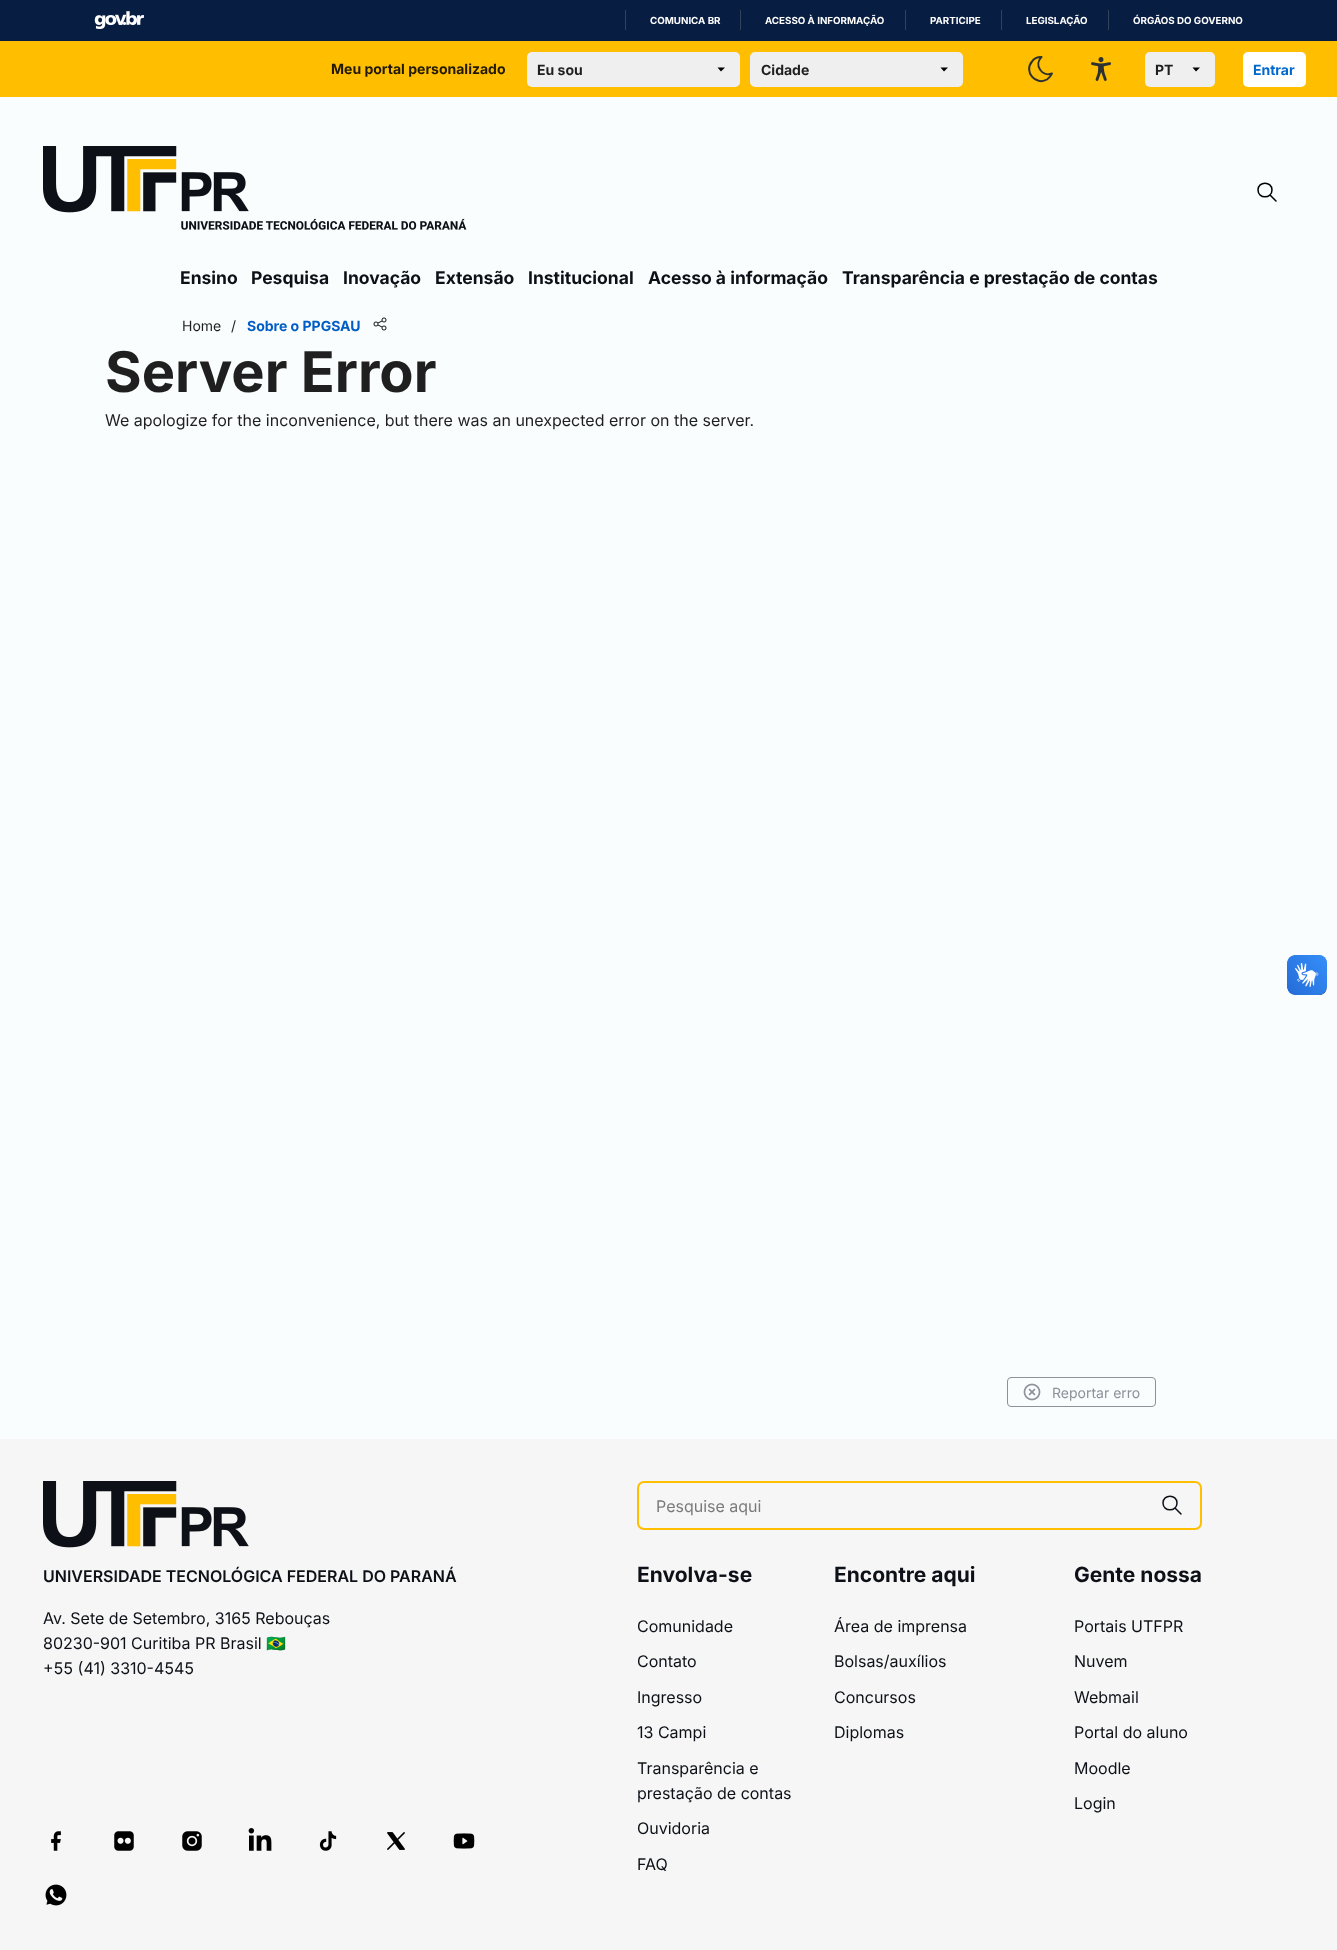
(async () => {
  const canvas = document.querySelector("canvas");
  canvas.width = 1337;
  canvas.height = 1950;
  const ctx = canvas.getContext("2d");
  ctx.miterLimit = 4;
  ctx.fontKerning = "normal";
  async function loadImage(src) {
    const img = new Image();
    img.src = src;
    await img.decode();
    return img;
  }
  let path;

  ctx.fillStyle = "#fafdfd";
  ctx.fillRect(0, 0, 1337, 1950);
  ctx.fillStyle = "#071d41";
  ctx.fillRect(0, 0, 1337, 41);
  ctx.drawImage(await loadImage("img/1.png"), 94, 11, 50, 18);
  for (const [x, y, w, h, color] of [
    [625, 10, 1, 20, "#32425b"],
    [740, 10, 1, 20, "#32425b"],
    [905, 10, 1, 20, "#32425b"],
    [1001, 10, 1, 20, "#32425b"],
    [1108, 10, 1, 20, "#32425b"],
    [0, 41, 1337, 56, "#ffbe00"],
  ]) {
    ctx.fillStyle = color;
    ctx.fillRect(x, y, w, h);
  }
  ctx.fillStyle = "#efefef";
  ctx.beginPath();
  ctx.roundRect(527, 52, 213, 35, 5);
  ctx.fill();
  ctx.fillStyle = "#000000";
  path = new Path2D("M717.5 67.5L721 71.5L725 67.5");
  ctx.fill(path);
  ctx.fillStyle = "#efefef";
  ctx.beginPath();
  ctx.roundRect(750, 52, 213, 35, 5);
  ctx.fill();
  ctx.fillStyle = "#000000";
  path = new Path2D("M940.5 67.5L944 71.5L948 67.5");
  ctx.fill(path);
  path = new Path2D("M1041 57H1041.5C1033.5 64.5 1042 77.5 1052 73.5C1051 76 1049 78 1047 79.5C1035.5 86 1023.5 71.5 1032 61.5C1034 58.5 1037.5 57 1041 57Z");
  ctx.strokeStyle = "#2e3132";
  ctx.lineWidth = 2;
  ctx.lineCap = "round";
  ctx.lineJoin = "round";
  ctx.stroke(path);
  ctx.drawImage(await loadImage("img/2.png"), 1091, 57, 20, 24);
  ctx.fillStyle = "#efefef";
  ctx.beginPath();
  ctx.roundRect(1145, 52, 70, 35, 5);
  ctx.fill();
  ctx.fillStyle = "#000000";
  path = new Path2D("M1192.5 67.5L1196 71.5L1200 67.5");
  ctx.fill(path);
  ctx.fillStyle = "#ffffff";
  ctx.beginPath();
  ctx.roundRect(1243, 52, 63, 35, 5);
  ctx.fill();
  ctx.drawImage(await loadImage("img/3.png"), 43, 146, 424, 84);
  path = new Path2D("M1276 201L1270 195M1258 190C1258 199 1272 199 1272 190C1272 181 1258 181 1258 190Z");
  ctx.strokeStyle = "#000000";
  ctx.lineWidth = 1.5;
  ctx.stroke(path);
  ctx.drawImage(await loadImage("img/4.png"), 373, 317, 14, 14);
  ctx.beginPath();
  ctx.roundRect(1007.5, 1377.5, 148, 29, 3.5);
  ctx.strokeStyle = "#8d9199";
  ctx.lineWidth = 1;
  ctx.lineJoin = "miter";
  ctx.stroke();
  ctx.drawImage(await loadImage("img/5.png"), 1023, 1383, 18, 18);
  ctx.fillStyle = "#f6f6f6";
  ctx.fillRect(0, 1439, 1337, 511);
  ctx.drawImage(await loadImage("img/6.png"), 43, 1481, 206, 67);
  ctx.drawImage(await loadImage("img/7.png"), 51, 1831, 10, 20);
  ctx.drawImage(await loadImage("img/8.png"), 114, 1831, 20, 20);
  ctx.drawImage(await loadImage("img/9.png"), 182, 1831, 20, 20);
  ctx.drawImage(await loadImage("img/10.png"), 248, 1828, 24, 23);
  ctx.drawImage(await loadImage("img/11.png"), 319, 1831, 18, 20);
  ctx.drawImage(await loadImage("img/12.png"), 387, 1832, 18, 18);
  ctx.drawImage(await loadImage("img/13.png"), 453, 1833, 22, 16);
  ctx.drawImage(await loadImage("img/14.png"), 45, 1884, 22, 22);
  ctx.beginPath();
  ctx.roundRect(638, 1482, 563, 47, 6);
  ctx.strokeStyle = "#ffbe00";
  ctx.lineWidth = 2;
  ctx.stroke();
  path = new Path2D("M1181 1514L1175 1508M1163 1503C1163 1512 1177 1512 1177 1503C1177 1494 1163 1494 1163 1503Z");
  ctx.strokeStyle = "#0d1117";
  ctx.lineWidth = 1.5;
  ctx.lineJoin = "round";
  ctx.stroke(path);
  ctx.drawImage(await loadImage("img/15.png"), 1287, 955, 40, 40);
  ctx.drawImage(await loadImage("img/16.png"), 1287, 955, 40, 40);
  ctx.font = "bold 9.75px Inter";
  ctx.fillStyle = "#ffffff";
  for (const [text, x, y] of [
    ["COMUNICA BR", 650, 24],
    ["ACESSO À INFORMAÇÃO", 765, 24],
    ["PARTICIPE", 930, 24],
    ["LEGISLAÇÃO", 1026, 24],
    ["ÓRGÃOS DO GOVERNO", 1133, 24],
  ]) {
    ctx.fillText(text, x, y);
  }
  ctx.font = "bold 14px Inter";
  ctx.fillStyle = "#211900";
  ctx.fillText("Meu portal personalizado", 331, 74);
  ctx.fillStyle = "#1f1f1f";
  for (const [text, x, y] of [
    ["Eu sou", 537, 75],
    ["Cidade", 761, 75],
    ["PT", 1155, 75],
  ]) {
    ctx.fillText(text, x, y);
  }
  ctx.fillStyle = "#0169cd";
  ctx.fillText("Entrar", 1253, 75);
  ctx.font = "bold 17.5px Inter";
  ctx.fillStyle = "#0d1117";
  for (const [text, x, y] of [
    ["Ensino", 180, 284],
    ["Pesquisa", 251, 284],
    ["Inovação", 343, 284],
    ["Extensão", 435, 284],
    ["Institucional", 528, 284],
    ["Acesso à informação", 648, 284],
    ["Transparência e prestação de contas", 842, 284],
  ]) {
    ctx.fillText(text, x, y);
  }
  ctx.font = "14px Inter";
  ctx.fillStyle = "#1f1f1f";
  ctx.fillText("Home", 182, 331);
  ctx.fillText("/", 231, 331);
  ctx.font = "bold 14px Inter";
  ctx.fillStyle = "#005dc5";
  ctx.fillText("Sobre o PPGSAU", 247, 331);
  ctx.font = "bold 56px Inter";
  ctx.fillStyle = "#1f1f1f";
  ctx.fillText("Server Error", 105, 392);
  ctx.font = "16px Inter";
  ctx.fillText("We apologize for the inconvenience, but there was an unexpected error on the server.", 105, 426);
  ctx.font = "14px Inter";
  ctx.fillStyle = "#8d9199";
  ctx.fillText("Reportar erro", 1052, 1398);
  ctx.font = "600 16px Inter";
  ctx.fillStyle = "#0d1117";
  ctx.fillText("UNIVERSIDADE TECNOLÓGICA FEDERAL DO PARANÁ", 43, 1582);
  ctx.font = "16px Inter";
  ctx.fillText("Av. Sete de Setembro, 3165 Rebouças", 43, 1624);
  ctx.fillText("80230-901 Curitiba PR Brasil", 43, 1649);
  ctx.font = "16px Noto Color Emoji";
  ctx.fillText("🇧🇷", 266, 1649);
  ctx.font = "16px Inter";
  ctx.fillText("+55 (41) 3310-4545", 43, 1674);
  ctx.fillStyle = "#7a7a7a";
  ctx.fillText("Pesquise aqui", 656, 1512);
  ctx.font = "bold 21px Inter";
  ctx.fillStyle = "#0d1117";
  ctx.fillText("Envolva-se", 637, 1582);
  ctx.font = "16px Inter";
  for (const [text, x, y] of [
    ["Comunidade", 637, 1632],
    ["Contato", 637, 1667],
    ["Ingresso", 637, 1703],
    ["13 Campi", 637, 1738],
    ["Transparência e", 637, 1774],
    ["prestação de contas", 637, 1799],
    ["Ouvidoria", 637, 1834],
    ["FAQ", 637, 1870],
  ]) {
    ctx.fillText(text, x, y);
  }
  ctx.font = "bold 21px Inter";
  ctx.fillText("Encontre aqui", 834, 1582);
  ctx.font = "16px Inter";
  for (const [text, x, y] of [
    ["Área de imprensa", 834, 1632],
    ["Bolsas/auxílios", 834, 1667],
    ["Concursos", 834, 1703],
    ["Diplomas", 834, 1738],
  ]) {
    ctx.fillText(text, x, y);
  }
  ctx.font = "bold 21px Inter";
  ctx.fillText("Gente nossa", 1074, 1582);
  ctx.font = "16px Inter";
  for (const [text, x, y] of [
    ["Portais UTFPR", 1074, 1632],
    ["Nuvem", 1074, 1667],
    ["Webmail", 1074, 1703],
    ["Portal do aluno", 1074, 1738],
    ["Moodle", 1074, 1774],
    ["Login", 1074, 1809],
  ]) {
    ctx.fillText(text, x, y);
  }
})();
